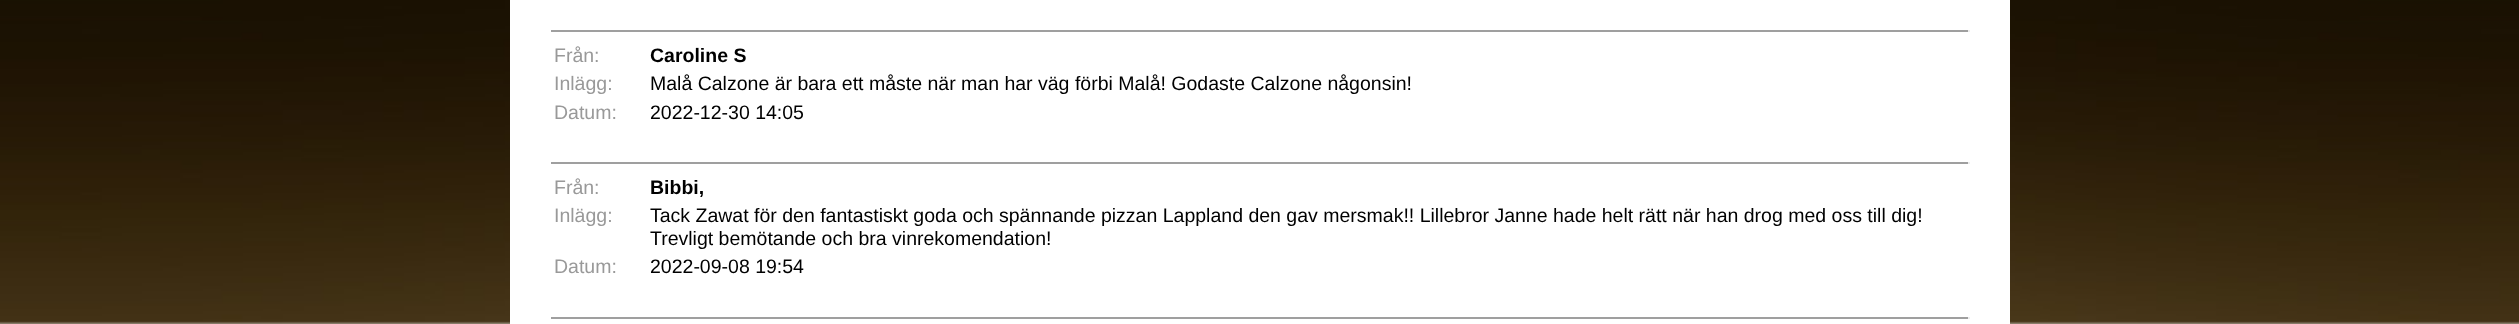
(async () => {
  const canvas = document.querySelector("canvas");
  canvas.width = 2519;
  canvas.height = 324;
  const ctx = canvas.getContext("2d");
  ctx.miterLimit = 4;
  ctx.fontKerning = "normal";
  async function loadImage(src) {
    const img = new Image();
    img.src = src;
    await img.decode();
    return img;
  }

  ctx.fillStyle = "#ffffff";
  ctx.fillRect(0, 0, 2519, 324);
  ctx.drawImage(await loadImage("img/1.png"), 0, 0, 2519, 324);
  for (const [x, y, w, h, color] of [
    [510, 0, 1500, 324, "#ffffff"],
    [551, 30, 1419, 2, "#9f9f9f"],
    [1968, 30, 2, 2, "#eeeeee"],
    [551, 162, 1419, 2, "#9f9f9f"],
    [1968, 162, 2, 2, "#eeeeee"],
    [551, 317, 1419, 2, "#9f9f9f"],
    [1968, 317, 2, 2, "#eeeeee"],
  ]) {
    ctx.fillStyle = color;
    ctx.fillRect(x, y, w, h);
  }
  ctx.font = "19.5px Liberation Sans";
  ctx.fillStyle = "#999999";
  ctx.fillText("Från:", 554, 62);
  ctx.font = "bold 19.5px Liberation Sans";
  ctx.fillStyle = "#000000";
  ctx.fillText("Caroline S", 650, 62);
  ctx.font = "19.5px Liberation Sans";
  ctx.fillStyle = "#999999";
  ctx.fillText("Inlägg:", 554, 90);
  ctx.fillStyle = "#000000";
  ctx.fillText("Malå Calzone är bara ett måste när man har väg förbi Malå! Godaste Calzone någonsin!", 650, 90);
  ctx.fillStyle = "#999999";
  ctx.fillText("Datum:", 554, 119);
  ctx.fillStyle = "#000000";
  ctx.fillText("2022-12-30 14:05", 650, 119);
  ctx.fillStyle = "#999999";
  ctx.fillText("Från:", 554, 194);
  ctx.font = "bold 19.5px Liberation Sans";
  ctx.fillStyle = "#000000";
  ctx.fillText("Bibbi,", 650, 194);
  ctx.font = "19.5px Liberation Sans";
  ctx.fillStyle = "#999999";
  ctx.fillText("Inlägg:", 554, 222);
  ctx.fillStyle = "#000000";
  ctx.fillText("Tack Zawat för den fantastiskt goda och spännande pizzan Lappland den gav mersmak!! Lillebror Janne hade helt rätt när han drog med oss till dig!", 650, 222);
  ctx.fillText("Trevligt bemötande och bra vinrekomendation!", 650, 245);
  ctx.fillStyle = "#999999";
  ctx.fillText("Datum:", 554, 273);
  ctx.fillStyle = "#000000";
  ctx.fillText("2022-09-08 19:54", 650, 273);
})();
